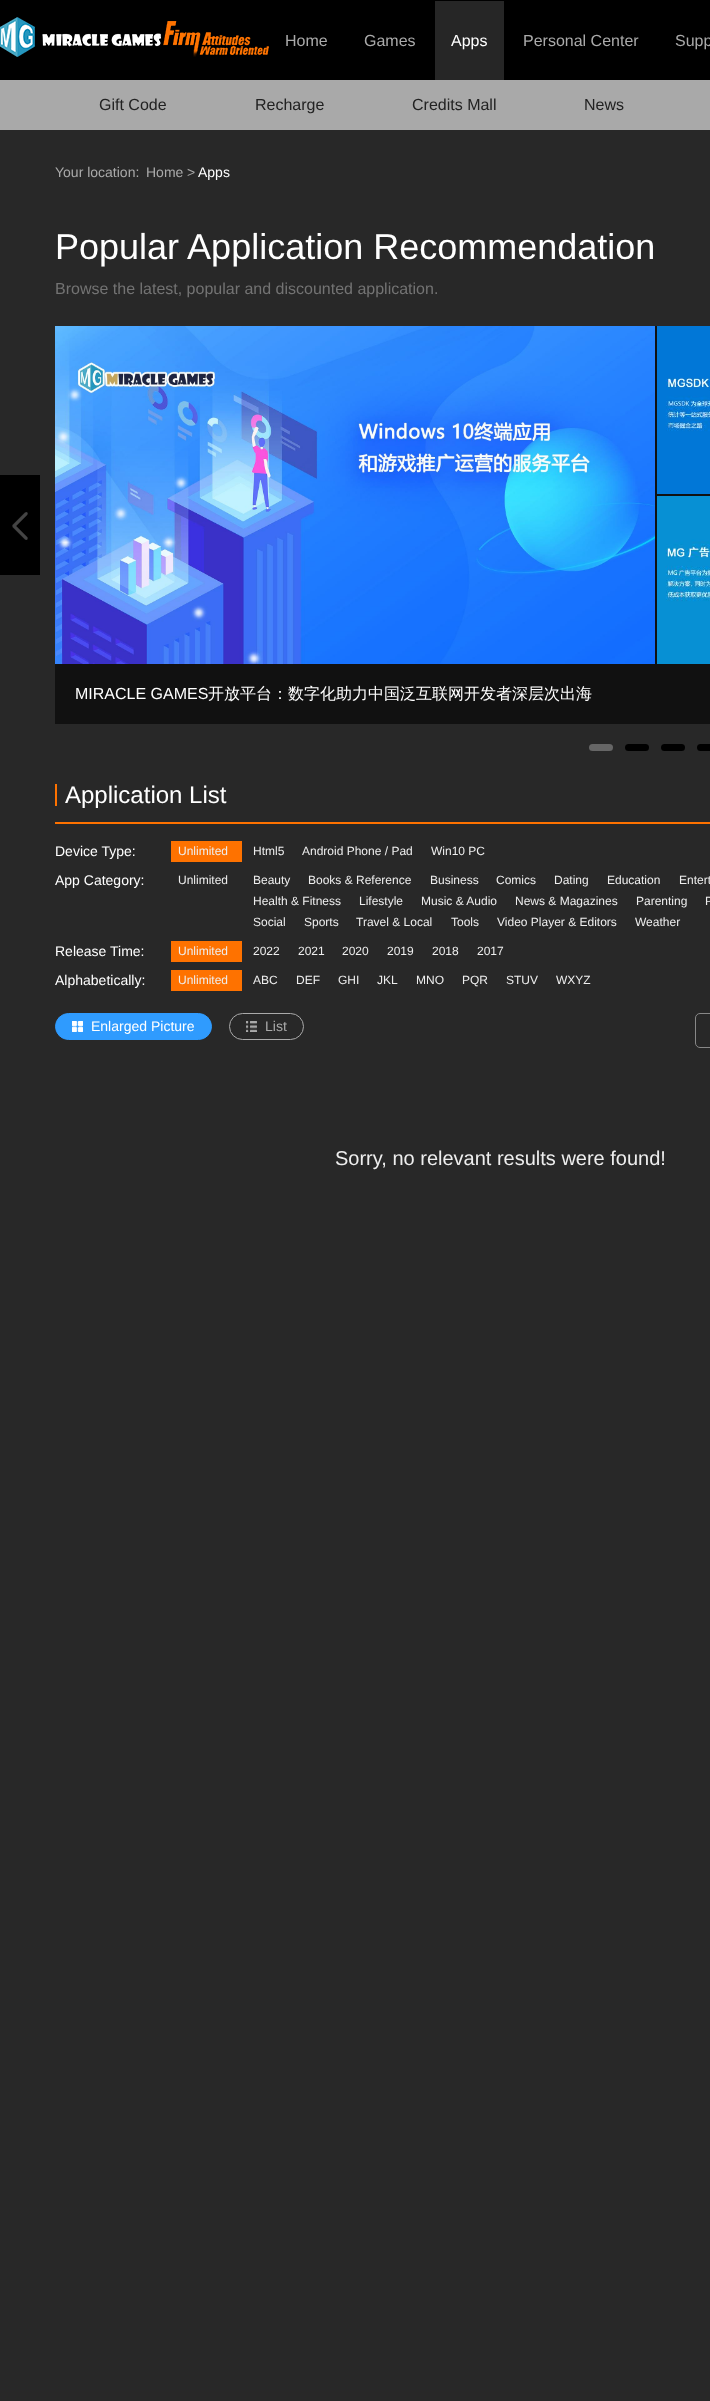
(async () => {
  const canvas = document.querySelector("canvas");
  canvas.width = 710;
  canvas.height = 2401;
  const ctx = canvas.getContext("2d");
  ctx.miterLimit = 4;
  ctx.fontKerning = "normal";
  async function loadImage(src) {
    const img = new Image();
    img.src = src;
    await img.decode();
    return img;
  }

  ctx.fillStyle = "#282828";
  ctx.fillRect(0, 0, 710, 2401);
  ctx.fillStyle = "#000000";
  ctx.fillRect(0, 0, 710, 80);
  ctx.drawImage(await loadImage("img/1.png"), 0, 17, 269, 40);
  for (const [x, y, w, h, color] of [
    [435, 1, 69, 79, "#262626"],
    [0, 80, 710, 50, "#a9a9a9"],
    [0, 475, 40, 100, "#000000"],
  ]) {
    ctx.fillStyle = color;
    ctx.fillRect(x, y, w, h);
  }
  ctx.drawImage(await loadImage("img/2.png"), 12, 512, 16, 28);
  ctx.fillStyle = "#111111";
  ctx.fillRect(55, 326, 655, 398);
  ctx.drawImage(await loadImage("img/3.png"), 55, 326, 600, 338);
  ctx.drawImage(await loadImage("img/4.png"), 657, 326, 53, 168);
  ctx.drawImage(await loadImage("img/5.png"), 657, 496, 53, 168);
  ctx.fillStyle = "#666666";
  ctx.beginPath();
  ctx.roundRect(589, 744, 24, 7, 3.5);
  ctx.fill();
  ctx.fillStyle = "#000000";
  ctx.beginPath();
  ctx.roundRect(625, 744, 24, 7, 3.5);
  ctx.fill();
  ctx.beginPath();
  ctx.roundRect(661, 744, 24, 7, 3.5);
  ctx.fill();
  ctx.beginPath();
  ctx.roundRect(697, 744, 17, 7, 3.5);
  ctx.fill();
  for (const [x, y, w, h, color] of [
    [55, 822, 655, 2, "#fe7200"],
    [55, 784, 2, 22, "#fe7200"],
    [171, 841, 71, 21, "#fe7200"],
    [171, 941, 71, 21, "#fe7200"],
    [171, 970, 71, 21, "#fe7200"],
  ]) {
    ctx.fillStyle = color;
    ctx.fillRect(x, y, w, h);
  }
  ctx.fillStyle = "#2f9bfe";
  ctx.beginPath();
  ctx.roundRect(55.5, 1013.5, 156, 26, 13);
  ctx.fill();
  ctx.strokeStyle = "#2f9bfe";
  ctx.stroke();
  ctx.drawImage(await loadImage("img/6.png"), 72, 1021, 11, 11);
  ctx.beginPath();
  ctx.roundRect(229.5, 1013.5, 74, 26, 13);
  ctx.strokeStyle = "#aaaaaa";
  ctx.stroke();
  ctx.drawImage(await loadImage("img/7.png"), 246, 1021, 11, 11);
  ctx.beginPath();
  ctx.roundRect(695.5, 1013.5, 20, 34, 4.5);
  ctx.strokeStyle = "#888888";
  ctx.stroke();
  ctx.font = "16px Liberation Sans";
  ctx.fillStyle = "#aaaaaa";
  ctx.fillText("Home", 285, 46);
  ctx.fillText("Games", 364, 46);
  ctx.fillStyle = "#ffffff";
  ctx.fillText("Apps", 451, 46);
  ctx.fillStyle = "#aaaaaa";
  ctx.fillText("Personal Center", 523, 46);
  ctx.fillText("Supp", 675, 46);
  ctx.fillStyle = "#222222";
  for (const [text, x, y] of [
    ["Gift Code", 99, 110],
    ["Recharge", 255, 110],
    ["Credits Mall", 412, 110],
    ["News", 584, 110],
  ]) {
    ctx.fillText(text, x, y);
  }
  ctx.font = "14px Liberation Sans";
  ctx.fillStyle = "#aaaaaa";
  for (const [text, x, y] of [
    ["Your location:", 55, 177],
    ["Home", 146, 177],
    [">", 187, 177],
  ]) {
    ctx.fillText(text, x, y);
  }
  ctx.fillStyle = "#ffffff";
  ctx.fillText("Apps", 198, 177);
  ctx.font = "36px Liberation Sans";
  ctx.fillText("Popular Application Recommendation", 55, 259);
  ctx.font = "16px Liberation Sans";
  ctx.fillStyle = "#737373";
  ctx.fillText("Browse the latest, popular and discounted application.", 55, 294);
  ctx.fillStyle = "#ffffff";
  ctx.fillText("MIRACLE GAMES", 75, 699);
  ctx.font = "500 16px WenQuanYi Zen Hei";
  ctx.fillText("开放平台：数字化助力中国泛互联网开发者深层次出海", 208, 699);
  ctx.font = "24px Liberation Sans";
  ctx.fillText("Application List", 65, 803);
  ctx.font = "14px Liberation Sans";
  ctx.fillText("Device Type:", 55, 856);
  ctx.font = "12px Liberation Sans";
  ctx.fillStyle = "#eeeeee";
  for (const [text, x, y] of [
    ["Unlimited", 178, 855],
    ["Html5", 253, 855],
    ["Android Phone / Pad", 302, 855],
    ["Win10 PC", 431, 855],
  ]) {
    ctx.fillText(text, x, y);
  }
  ctx.font = "14px Liberation Sans";
  ctx.fillStyle = "#ffffff";
  ctx.fillText("App Category:", 55, 885);
  ctx.font = "12px Liberation Sans";
  ctx.fillStyle = "#eeeeee";
  for (const [text, x, y] of [
    ["Unlimited", 178, 884],
    ["Beauty", 253, 884],
    ["Books & Reference", 308, 884],
    ["Business", 430, 884],
    ["Comics", 496, 884],
    ["Dating", 554, 884],
    ["Education", 607, 884],
    ["Entert", 679, 884],
    ["Health & Fitness", 253, 905],
    ["Lifestyle", 359, 905],
    ["Music & Audio", 421, 905],
    ["News & Magazines", 515, 905],
    ["Parenting", 636, 905],
    ["P", 705, 905],
    ["Social", 253, 926],
    ["Sports", 304, 926],
    ["Travel & Local", 356, 926],
    ["Tools", 451, 926],
    ["Video Player & Editors", 497, 926],
    ["Weather", 635, 926],
  ]) {
    ctx.fillText(text, x, y);
  }
  ctx.font = "14px Liberation Sans";
  ctx.fillStyle = "#ffffff";
  ctx.fillText("Release Time:", 55, 956);
  ctx.font = "12px Liberation Sans";
  ctx.fillStyle = "#eeeeee";
  for (const [text, x, y] of [
    ["Unlimited", 178, 955],
    ["2022", 253, 955],
    ["2021", 298, 955],
    ["2020", 342, 955],
    ["2019", 387, 955],
    ["2018", 432, 955],
    ["2017", 477, 955],
  ]) {
    ctx.fillText(text, x, y);
  }
  ctx.font = "14px Liberation Sans";
  ctx.fillStyle = "#ffffff";
  ctx.fillText("Alphabetically:", 55, 985);
  ctx.font = "12px Liberation Sans";
  ctx.fillStyle = "#eeeeee";
  for (const [text, x, y] of [
    ["Unlimited", 178, 984],
    ["ABC", 253, 984],
    ["DEF", 296, 984],
    ["GHI", 338, 984],
    ["JKL", 377, 984],
    ["MNO", 416, 984],
    ["PQR", 462, 984],
    ["STUV", 506, 984],
    ["WXYZ", 556, 984],
  ]) {
    ctx.fillText(text, x, y);
  }
  ctx.font = "14px Liberation Sans";
  ctx.fillStyle = "#ffffff";
  ctx.fillText("Enlarged Picture", 91, 1031);
  ctx.fillStyle = "#aaaaaa";
  ctx.fillText("List", 265, 1031);
  ctx.font = "20px Liberation Sans";
  ctx.fillStyle = "#eeeeee";
  ctx.fillText("Sorry, no relevant results were found!", 335, 1165);
})();
